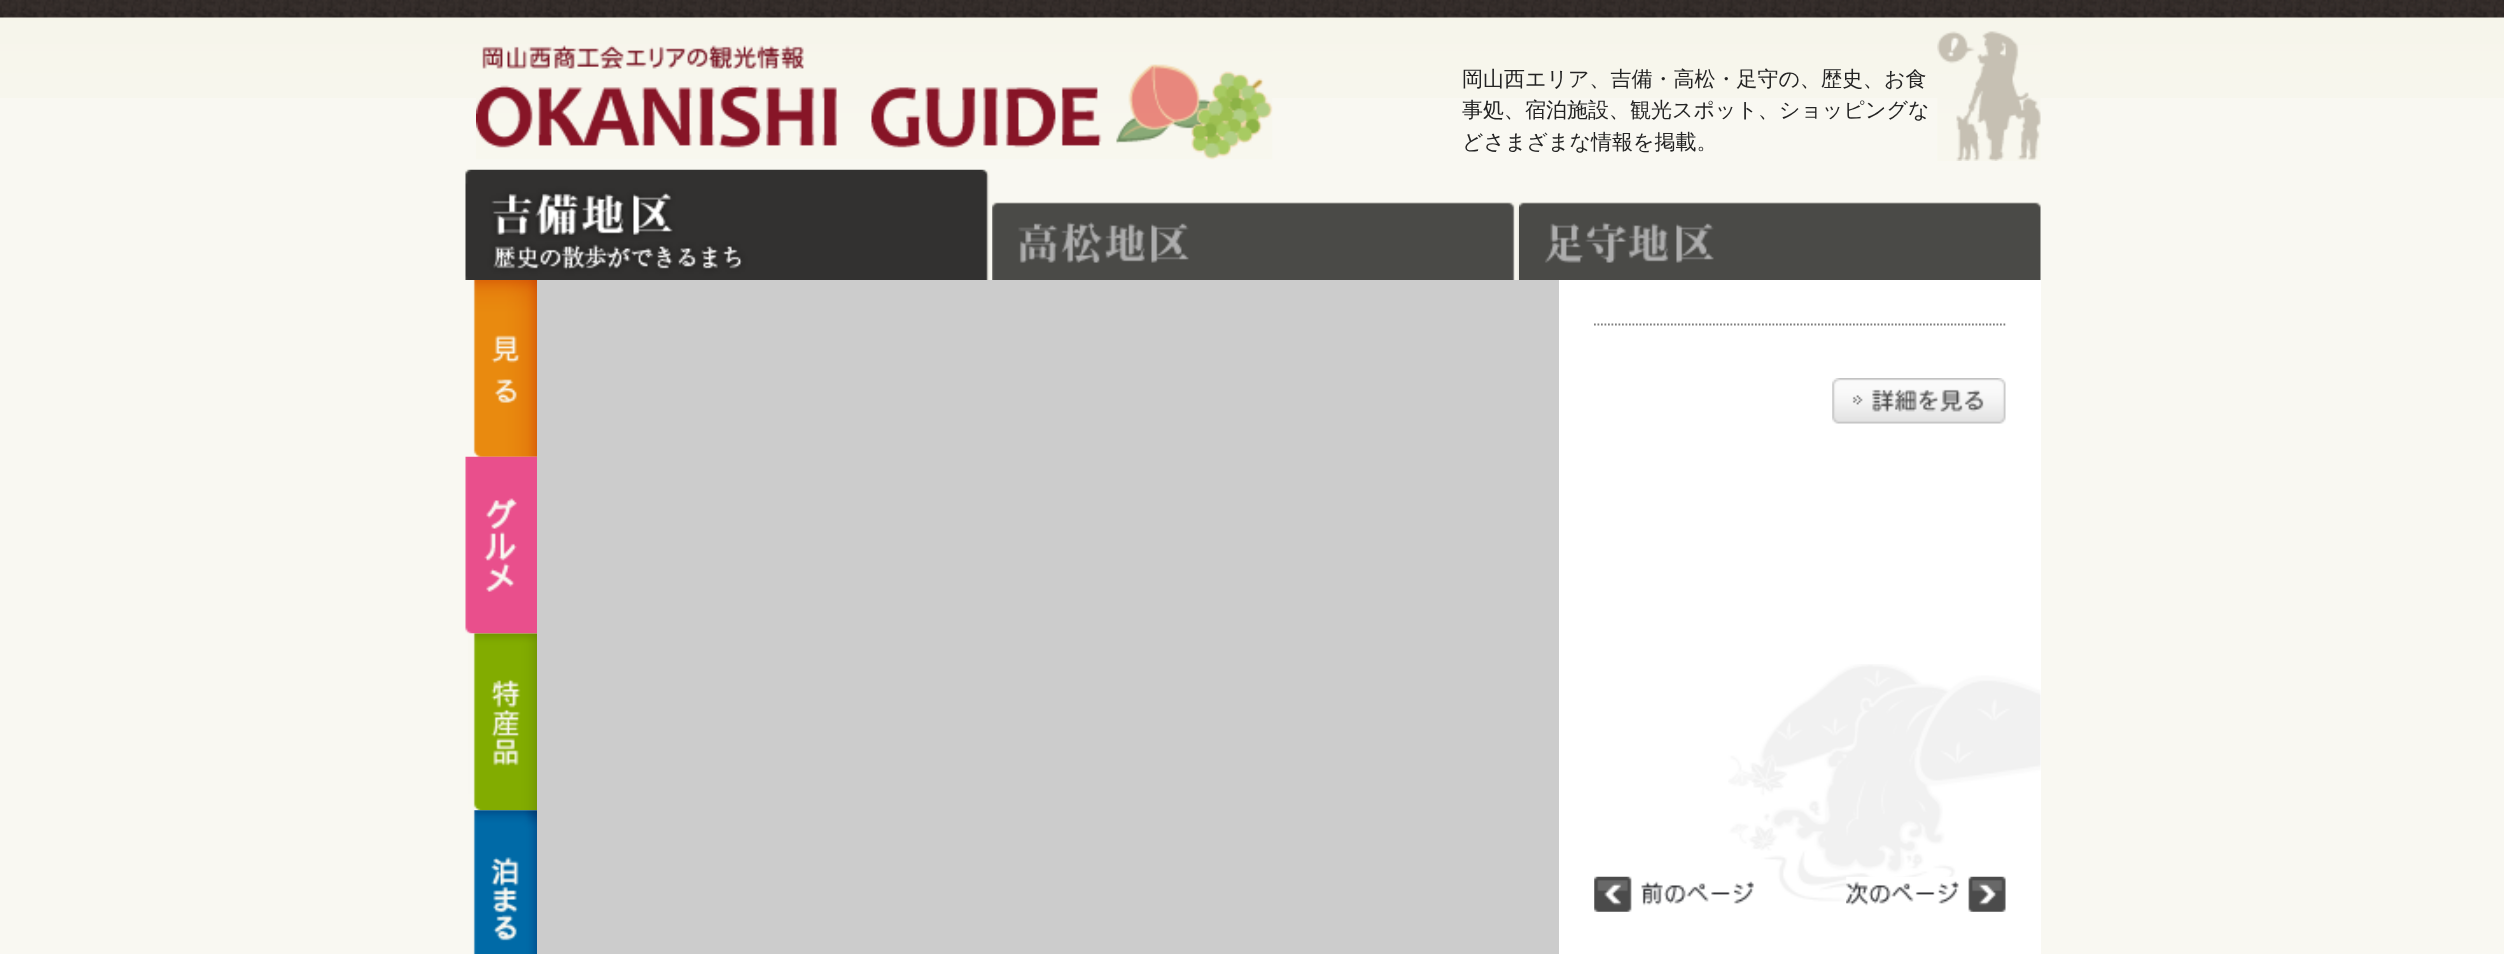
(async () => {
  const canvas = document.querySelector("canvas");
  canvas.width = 2504;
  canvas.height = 954;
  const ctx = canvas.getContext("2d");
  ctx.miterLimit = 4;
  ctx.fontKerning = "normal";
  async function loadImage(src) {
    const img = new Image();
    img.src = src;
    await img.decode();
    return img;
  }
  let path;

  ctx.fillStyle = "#f9f8f2";
  ctx.fillRect(0, 0, 2504, 954);
  ctx.drawImage(await loadImage("img/1.png"), 0, 0, 2504, 98);
  ctx.drawImage(await loadImage("img/2.png"), 476, 45, 797, 115);
  ctx.drawImage(await loadImage("img/3.png"), 1937, 31, 104, 130);
  ctx.drawImage(await loadImage("img/4.png"), 465, 169, 525, 111);
  ctx.drawImage(await loadImage("img/5.png"), 992, 202, 527, 78);
  ctx.drawImage(await loadImage("img/6.png"), 1519, 202, 522, 78);
  ctx.drawImage(await loadImage("img/7.png"), 476, 456, 61, 355);
  ctx.drawImage(await loadImage("img/8.png"), 473, 280, 64, 177);
  ctx.drawImage(await loadImage("img/9.png"), 465, 456, 72, 178);
  ctx.drawImage(await loadImage("img/10.png"), 468, 633, 69, 178);
  ctx.drawImage(await loadImage("img/11.png"), 473, 810, 64, 144);
  ctx.fillStyle = "#ffffff";
  ctx.fillRect(1559, 280, 482, 674);
  ctx.drawImage(await loadImage("img/12.png"), 1728, 664, 313, 247);
  ctx.fillStyle = "#cccccc";
  ctx.fillRect(537, 280, 1022, 674);
  path = new Path2D("M1594 324.5H2005.5");
  ctx.strokeStyle = "#7d7d7d";
  ctx.lineWidth = 1.8;
  ctx.setLineDash([1.75, 1.75]);
  ctx.stroke(path);
  ctx.drawImage(await loadImage("img/13.png"), 1832, 378, 174, 46);
  ctx.drawImage(await loadImage("img/14.png"), 1594, 876, 160, 36);
  ctx.drawImage(await loadImage("img/15.png"), 1846, 876, 160, 36);
  ctx.font = "500 21px WenQuanYi Zen Hei";
  ctx.fillStyle = "#232323";
  for (const [text, x, y] of [
    ["岡山西エリア、吉備・高松・足守の、歴史、お食", 1462, 86],
    ["事処、宿泊施設、観光スポット、ショッピングな", 1462, 117],
    ["どさまざまな情報を掲載。", 1462, 149],
  ]) {
    ctx.fillText(text, x, y);
  }
})();
